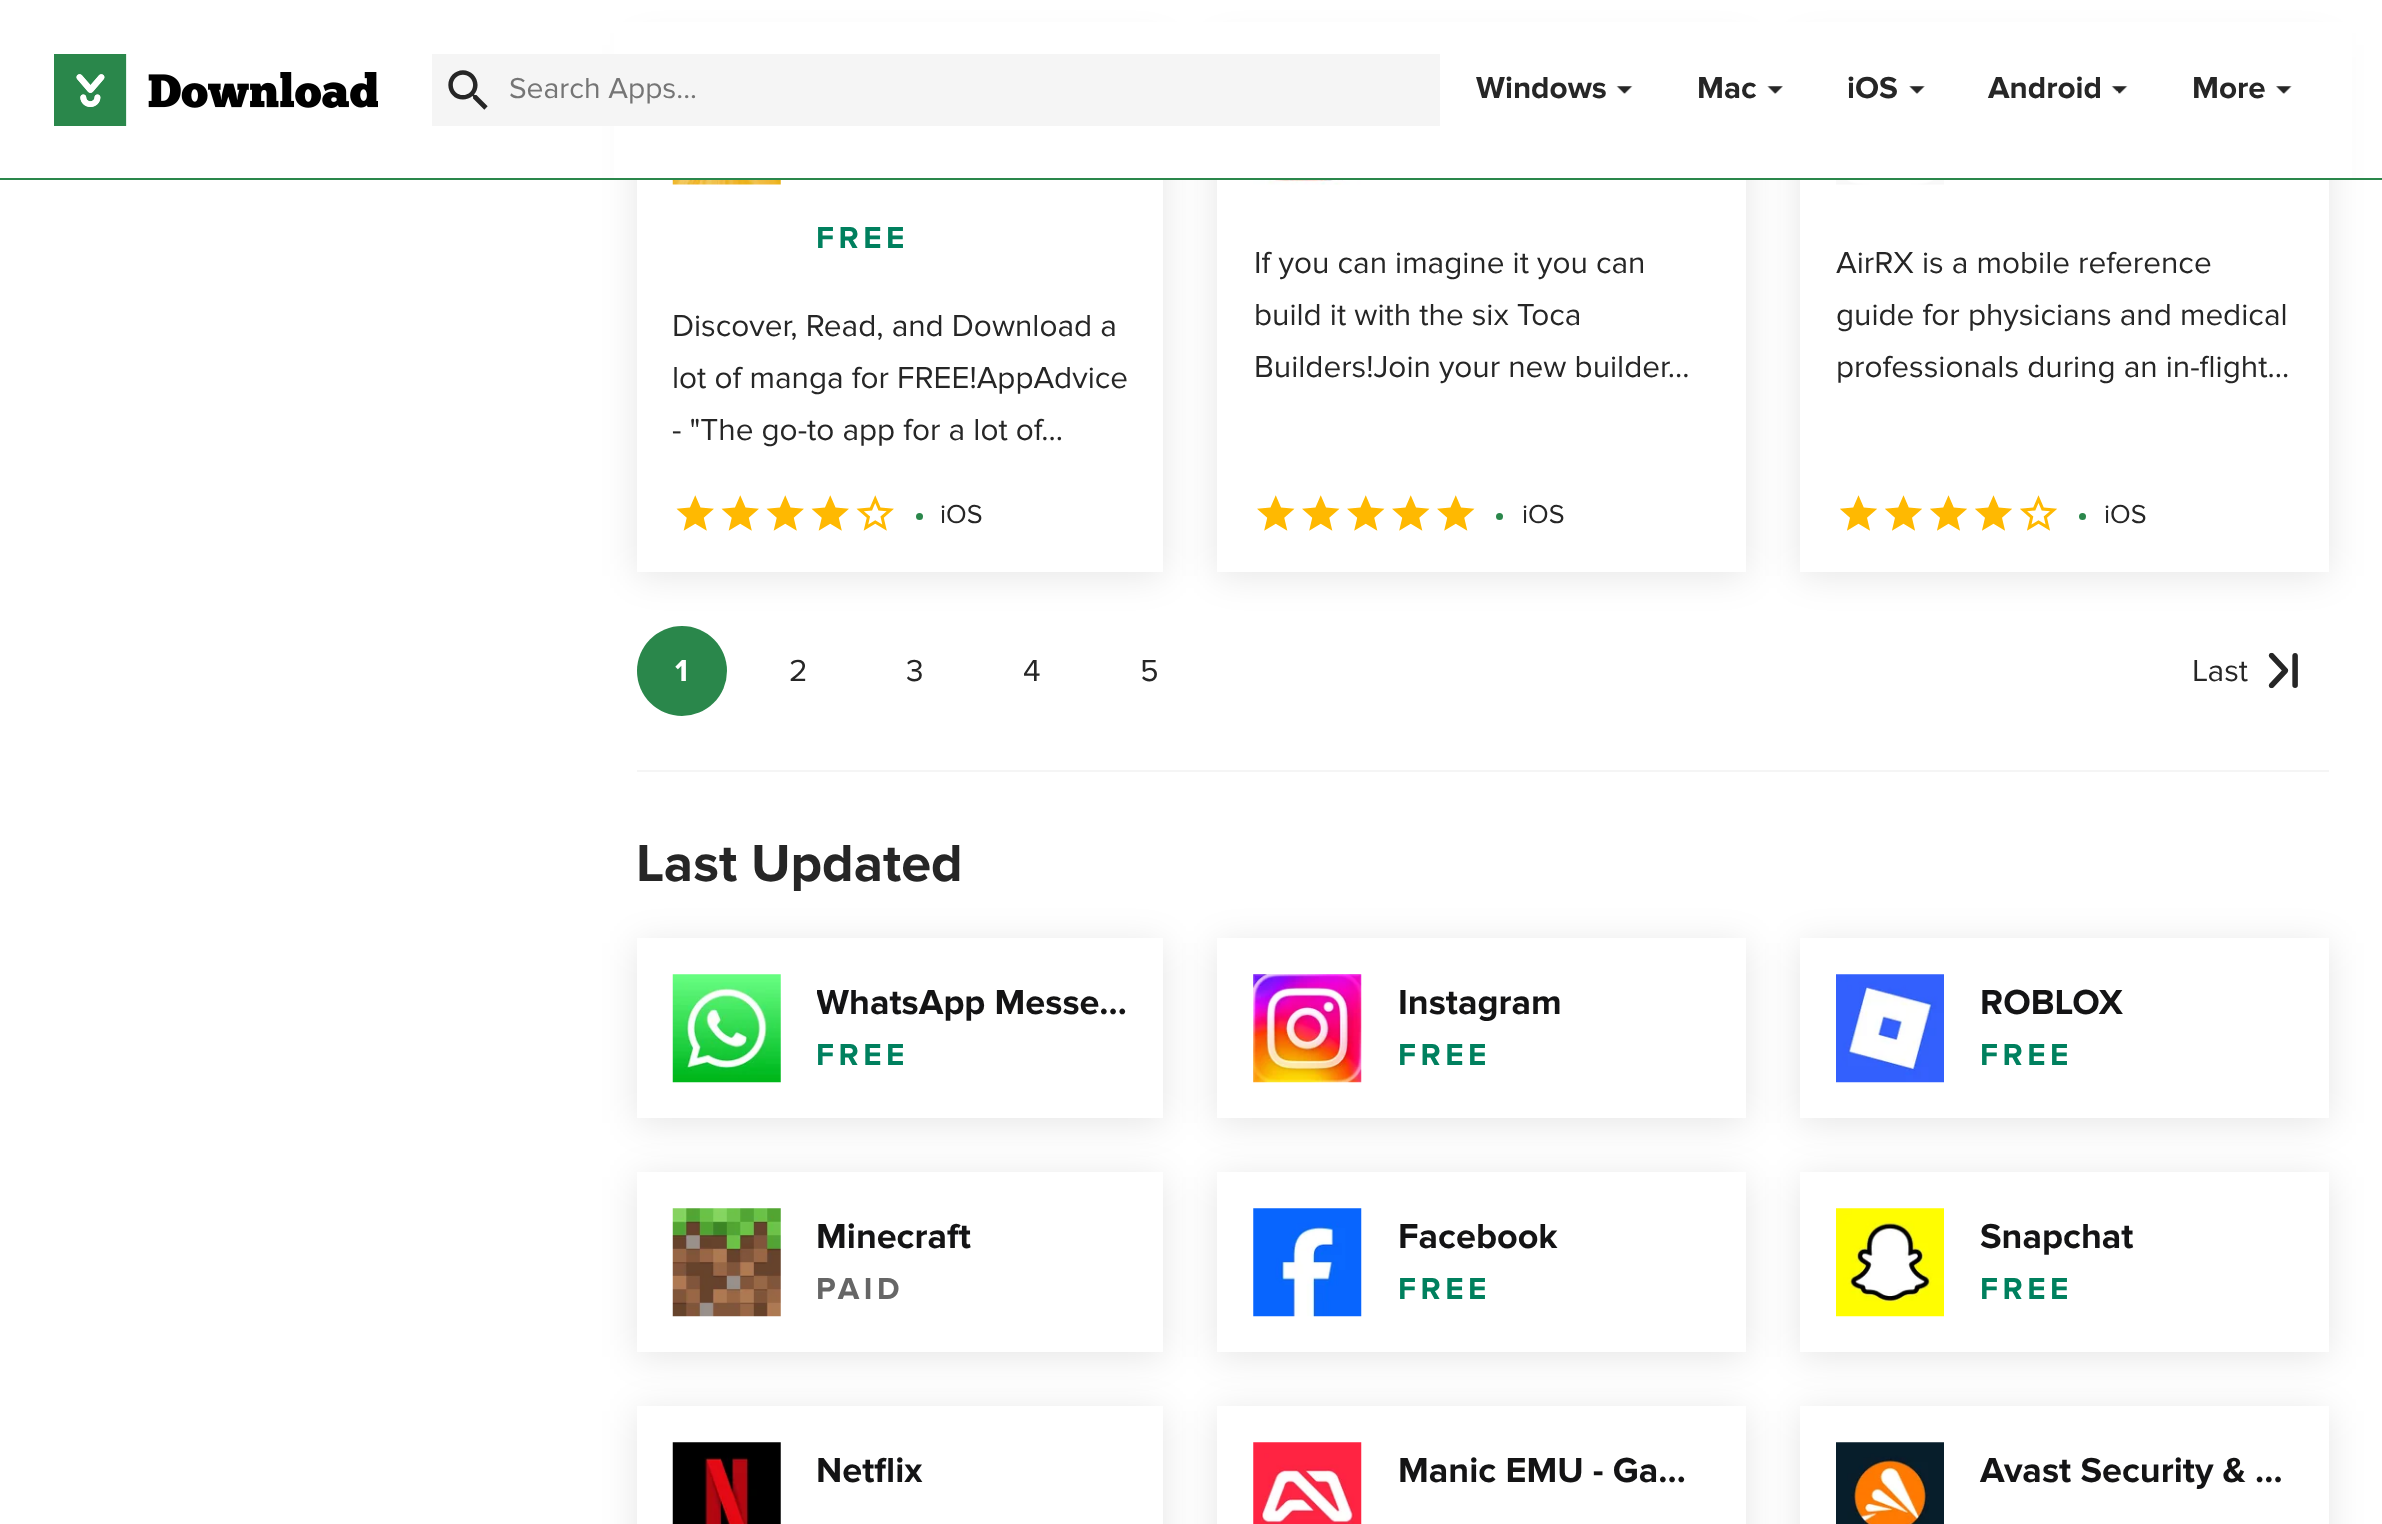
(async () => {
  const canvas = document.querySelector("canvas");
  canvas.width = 2382;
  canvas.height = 1524;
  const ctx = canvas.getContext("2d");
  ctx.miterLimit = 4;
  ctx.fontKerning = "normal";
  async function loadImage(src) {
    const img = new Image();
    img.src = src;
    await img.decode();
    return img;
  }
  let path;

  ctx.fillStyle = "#ffffff";
  ctx.fillRect(0, 0, 2382, 1524);
  ctx.fillStyle = "#2a874b";
  ctx.beginPath();
  ctx.arc(682, 671, 45, 0, Math.PI * 2);
  ctx.fill();
  ctx.save();
  path = new Path2D("M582 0H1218V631H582ZM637 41H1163V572H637Z");
  ctx.clip(path, "evenodd");
  ctx.fillStyle = "rgba(0, 0, 0, 0.1)";
  ctx.filter = "blur(18px)";
  ctx.beginPath();
  ctx.rect(637, 45, 526, 531);
  ctx.fill();
  ctx.filter = "none";
  ctx.restore();
  ctx.save();
  path = new Path2D("M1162 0H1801V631H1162ZM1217 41H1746V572H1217Z");
  ctx.clip(path, "evenodd");
  ctx.fillStyle = "rgba(0, 0, 0, 0.1)";
  ctx.filter = "blur(18px)";
  ctx.beginPath();
  ctx.rect(1217, 45, 529, 531);
  ctx.fill();
  ctx.filter = "none";
  ctx.restore();
  ctx.save();
  path = new Path2D("M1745 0H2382V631H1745ZM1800 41H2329V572H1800Z");
  ctx.clip(path, "evenodd");
  ctx.fillStyle = "rgba(0, 0, 0, 0.1)";
  ctx.filter = "blur(18px)";
  ctx.beginPath();
  ctx.rect(1800, 45, 529, 531);
  ctx.fill();
  ctx.filter = "none";
  ctx.restore();
  ctx.fillStyle = "#ffffff";
  ctx.fillRect(614, 22, 1738, 156);
  ctx.fillStyle = "#2a874b";
  ctx.fillRect(0, 178, 2382, 2);
  ctx.drawImage(await loadImage("img/1.png"), 54, 54, 324, 72);
  ctx.fillStyle = "#f5f5f5";
  ctx.fillRect(432, 54, 1008, 72);
  ctx.drawImage(await loadImage("img/2.png"), 448, 70, 40, 40);
  ctx.drawImage(await loadImage("img/3.png"), 1616, 86, 17, 8);
  ctx.drawImage(await loadImage("img/4.png"), 1767, 86, 16, 8);
  ctx.drawImage(await loadImage("img/5.png"), 1909, 86, 16, 8);
  ctx.drawImage(await loadImage("img/6.png"), 2111, 86, 17, 8);
  ctx.drawImage(await loadImage("img/7.png"), 2276, 86, 16, 8);
  ctx.drawImage(await loadImage("img/8.png"), 672, 180, 109, 5);
  ctx.drawImage(await loadImage("img/9.png"), 676, 495, 218, 36);
  ctx.fillStyle = "#2a874b";
  ctx.beginPath();
  ctx.arc(919.5, 516.5, 3.5, 0, Math.PI * 2);
  ctx.fill();
  ctx.drawImage(await loadImage("img/10.png"), 1253, 180, 108, 5);
  ctx.drawImage(await loadImage("img/11.png"), 1257, 495, 218, 36);
  ctx.beginPath();
  ctx.arc(1499.5, 516.5, 3.5, 0, Math.PI * 2);
  ctx.fill();
  ctx.drawImage(await loadImage("img/12.png"), 1836, 180, 108, 5);
  ctx.drawImage(await loadImage("img/13.png"), 1840, 495, 217, 36);
  ctx.beginPath();
  ctx.arc(2082.5, 516.5, 3.5, 0, Math.PI * 2);
  ctx.fill();
  ctx.drawImage(await loadImage("img/14.png"), 2268, 652, 30, 37);
  ctx.fillStyle = "#f5f5f5";
  ctx.fillRect(637, 770, 1692, 2);
  ctx.save();
  path = new Path2D("M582 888H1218V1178H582ZM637 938H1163V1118H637Z");
  ctx.clip(path, "evenodd");
  ctx.fillStyle = "rgba(0, 0, 0, 0.1)";
  ctx.filter = "blur(18px)";
  ctx.beginPath();
  ctx.rect(637, 943, 526, 180);
  ctx.fill();
  ctx.filter = "none";
  ctx.restore();
  ctx.drawImage(await loadImage("img/15.png"), 672, 974, 109, 109);
  ctx.save();
  path = new Path2D("M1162 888H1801V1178H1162ZM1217 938H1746V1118H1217Z");
  ctx.clip(path, "evenodd");
  ctx.fillStyle = "rgba(0, 0, 0, 0.1)";
  ctx.filter = "blur(18px)";
  ctx.beginPath();
  ctx.rect(1217, 943, 529, 180);
  ctx.fill();
  ctx.filter = "none";
  ctx.restore();
  ctx.drawImage(await loadImage("img/16.png"), 1253, 974, 109, 109);
  ctx.save();
  path = new Path2D("M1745 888H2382V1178H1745ZM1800 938H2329V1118H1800Z");
  ctx.clip(path, "evenodd");
  ctx.fillStyle = "rgba(0, 0, 0, 0.1)";
  ctx.filter = "blur(18px)";
  ctx.beginPath();
  ctx.rect(1800, 943, 529, 180);
  ctx.fill();
  ctx.filter = "none";
  ctx.restore();
  ctx.drawImage(await loadImage("img/17.png"), 1836, 974, 108, 109);
  ctx.save();
  path = new Path2D("M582 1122H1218V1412H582ZM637 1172H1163V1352H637Z");
  ctx.clip(path, "evenodd");
  ctx.fillStyle = "rgba(0, 0, 0, 0.1)";
  ctx.filter = "blur(18px)";
  ctx.beginPath();
  ctx.rect(637, 1177, 526, 180);
  ctx.fill();
  ctx.filter = "none";
  ctx.restore();
  ctx.drawImage(await loadImage("img/18.png"), 672, 1208, 109, 109);
  ctx.save();
  path = new Path2D("M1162 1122H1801V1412H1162ZM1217 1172H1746V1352H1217Z");
  ctx.clip(path, "evenodd");
  ctx.fillStyle = "rgba(0, 0, 0, 0.1)";
  ctx.filter = "blur(18px)";
  ctx.beginPath();
  ctx.rect(1217, 1177, 529, 180);
  ctx.fill();
  ctx.filter = "none";
  ctx.restore();
  ctx.drawImage(await loadImage("img/19.png"), 1253, 1208, 109, 109);
  ctx.save();
  path = new Path2D("M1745 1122H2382V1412H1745ZM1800 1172H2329V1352H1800Z");
  ctx.clip(path, "evenodd");
  ctx.fillStyle = "rgba(0, 0, 0, 0.1)";
  ctx.filter = "blur(18px)";
  ctx.beginPath();
  ctx.rect(1800, 1177, 529, 180);
  ctx.fill();
  ctx.filter = "none";
  ctx.restore();
  ctx.drawImage(await loadImage("img/20.png"), 1836, 1208, 108, 109);
  ctx.save();
  path = new Path2D("M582 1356H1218V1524H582ZM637 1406H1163V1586H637Z");
  ctx.clip(path, "evenodd");
  ctx.fillStyle = "rgba(0, 0, 0, 0.1)";
  ctx.filter = "blur(18px)";
  ctx.beginPath();
  ctx.rect(637, 1411, 526, 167);
  ctx.fill();
  ctx.filter = "none";
  ctx.restore();
  ctx.drawImage(await loadImage("img/21.png"), 672, 1442, 109, 82);
  ctx.save();
  path = new Path2D("M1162 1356H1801V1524H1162ZM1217 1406H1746V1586H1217Z");
  ctx.clip(path, "evenodd");
  ctx.fillStyle = "rgba(0, 0, 0, 0.1)";
  ctx.filter = "blur(18px)";
  ctx.beginPath();
  ctx.rect(1217, 1411, 529, 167);
  ctx.fill();
  ctx.filter = "none";
  ctx.restore();
  ctx.drawImage(await loadImage("img/22.png"), 1253, 1442, 109, 82);
  ctx.save();
  path = new Path2D("M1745 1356H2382V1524H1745ZM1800 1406H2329V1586H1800Z");
  ctx.clip(path, "evenodd");
  ctx.fillStyle = "rgba(0, 0, 0, 0.1)";
  ctx.filter = "blur(18px)";
  ctx.beginPath();
  ctx.rect(1800, 1411, 529, 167);
  ctx.fill();
  ctx.filter = "none";
  ctx.restore();
  ctx.drawImage(await loadImage("img/23.png"), 1836, 1442, 108, 82);
  ctx.font = "30px Proxima Nova";
  ctx.fillStyle = "#757575";
  ctx.fillText("Search Apps...", 509, 98);
  ctx.font = "bold 31.5px Proxima Nova";
  ctx.fillStyle = "#262626";
  for (const [text, x, y] of [
    ["Windows", 1476, 98],
    ["Mac", 1697, 98],
    ["iOS", 1847, 98],
    ["Android", 1988, 98],
    ["More", 2192, 98],
  ]) {
    ctx.fillText(text, x, y);
  }
  ctx.letterSpacing = "4.5px";
  ctx.fillStyle = "#00805e";
  ctx.fillText("FREE", 816, 248);
  ctx.letterSpacing = "0px";
  ctx.font = "31.5px Proxima Nova";
  ctx.fillStyle = "#262626";
  for (const [text, x, y] of [
    ["Discover, Read, and Download a", 672, 336],
    ["lot of manga for FREE!AppAdvice", 672, 388],
    ["- \"The go-to app for a lot of…", 672, 440],
  ]) {
    ctx.fillText(text, x, y);
  }
  ctx.font = "27px Proxima Nova";
  ctx.fillText("iOS", 940, 523);
  ctx.font = "31.5px Proxima Nova";
  for (const [text, x, y] of [
    ["If you can imagine it you can", 1254, 273],
    ["build it with the six Toca", 1254, 325],
    ["Builders!Join your new builder…", 1254, 377],
  ]) {
    ctx.fillText(text, x, y);
  }
  ctx.font = "27px Proxima Nova";
  ctx.fillText("iOS", 1522, 523);
  ctx.font = "31.5px Proxima Nova";
  for (const [text, x, y] of [
    ["AirRX is a mobile reference", 1836, 273],
    ["guide for physicians and medical", 1836, 325],
    ["professionals during an in-flight…", 1836, 377],
  ]) {
    ctx.fillText(text, x, y);
  }
  ctx.font = "27px Proxima Nova";
  ctx.fillText("iOS", 2104, 523);
  ctx.font = "bold 31.5px Proxima Nova";
  ctx.fillStyle = "#ffffff";
  ctx.fillText("1", 675, 681);
  ctx.font = "31.5px Proxima Nova";
  ctx.fillStyle = "#262626";
  for (const [text, x, y] of [
    ["2", 789, 681],
    ["3", 906, 681],
    ["4", 1023, 681],
    ["5", 1140, 681],
    ["Last", 2192, 681],
  ]) {
    ctx.fillText(text, x, y);
  }
  ctx.font = "bold 54px Proxima Nova";
  ctx.fillText("Last Updated", 636, 881);
  ctx.save();
  ctx.beginPath();
  ctx.rect(817, 977, 310, 54);
  ctx.clip();
  ctx.font = "bold 36px Proxima Nova";
  ctx.fillStyle = "#141415";
  ctx.fillText("WhatsApp Messe…", 816, 1014);
  ctx.restore();
  ctx.letterSpacing = "4.5px";
  ctx.font = "bold 31.5px Proxima Nova";
  ctx.fillStyle = "#00805e";
  ctx.fillText("FREE", 816, 1065);
  ctx.letterSpacing = "0px";
  ctx.font = "bold 36px Proxima Nova";
  ctx.fillStyle = "#141415";
  ctx.fillText("Instagram", 1398, 1014);
  ctx.letterSpacing = "4.5px";
  ctx.font = "bold 31.5px Proxima Nova";
  ctx.fillStyle = "#00805e";
  ctx.fillText("FREE", 1398, 1065);
  ctx.letterSpacing = "0px";
  ctx.font = "bold 36px Proxima Nova";
  ctx.fillStyle = "#141415";
  ctx.fillText("ROBLOX", 1980, 1014);
  ctx.letterSpacing = "4.5px";
  ctx.font = "bold 31.5px Proxima Nova";
  ctx.fillStyle = "#00805e";
  ctx.fillText("FREE", 1980, 1065);
  ctx.letterSpacing = "0px";
  ctx.font = "bold 36px Proxima Nova";
  ctx.fillStyle = "#141415";
  ctx.fillText("Minecraft", 816, 1248);
  ctx.letterSpacing = "4.5px";
  ctx.font = "bold 31.5px Proxima Nova";
  ctx.fillStyle = "#666666";
  ctx.fillText("PAID", 816, 1299);
  ctx.letterSpacing = "0px";
  ctx.font = "bold 36px Proxima Nova";
  ctx.fillStyle = "#141415";
  ctx.fillText("Facebook", 1398, 1248);
  ctx.letterSpacing = "4.5px";
  ctx.font = "bold 31.5px Proxima Nova";
  ctx.fillStyle = "#00805e";
  ctx.fillText("FREE", 1398, 1299);
  ctx.letterSpacing = "0px";
  ctx.font = "bold 36px Proxima Nova";
  ctx.fillStyle = "#141415";
  ctx.fillText("Snapchat", 1980, 1248);
  ctx.letterSpacing = "4.5px";
  ctx.font = "bold 31.5px Proxima Nova";
  ctx.fillStyle = "#00805e";
  ctx.fillText("FREE", 1980, 1299);
  ctx.letterSpacing = "0px";
  ctx.font = "bold 36px Proxima Nova";
  ctx.fillStyle = "#141415";
  for (const [text, x, y] of [
    ["Netflix", 816, 1482],
    ["Manic EMU - Ga…", 1398, 1482],
    ["Avast Security & …", 1980, 1482],
  ]) {
    ctx.fillText(text, x, y);
  }
})();
